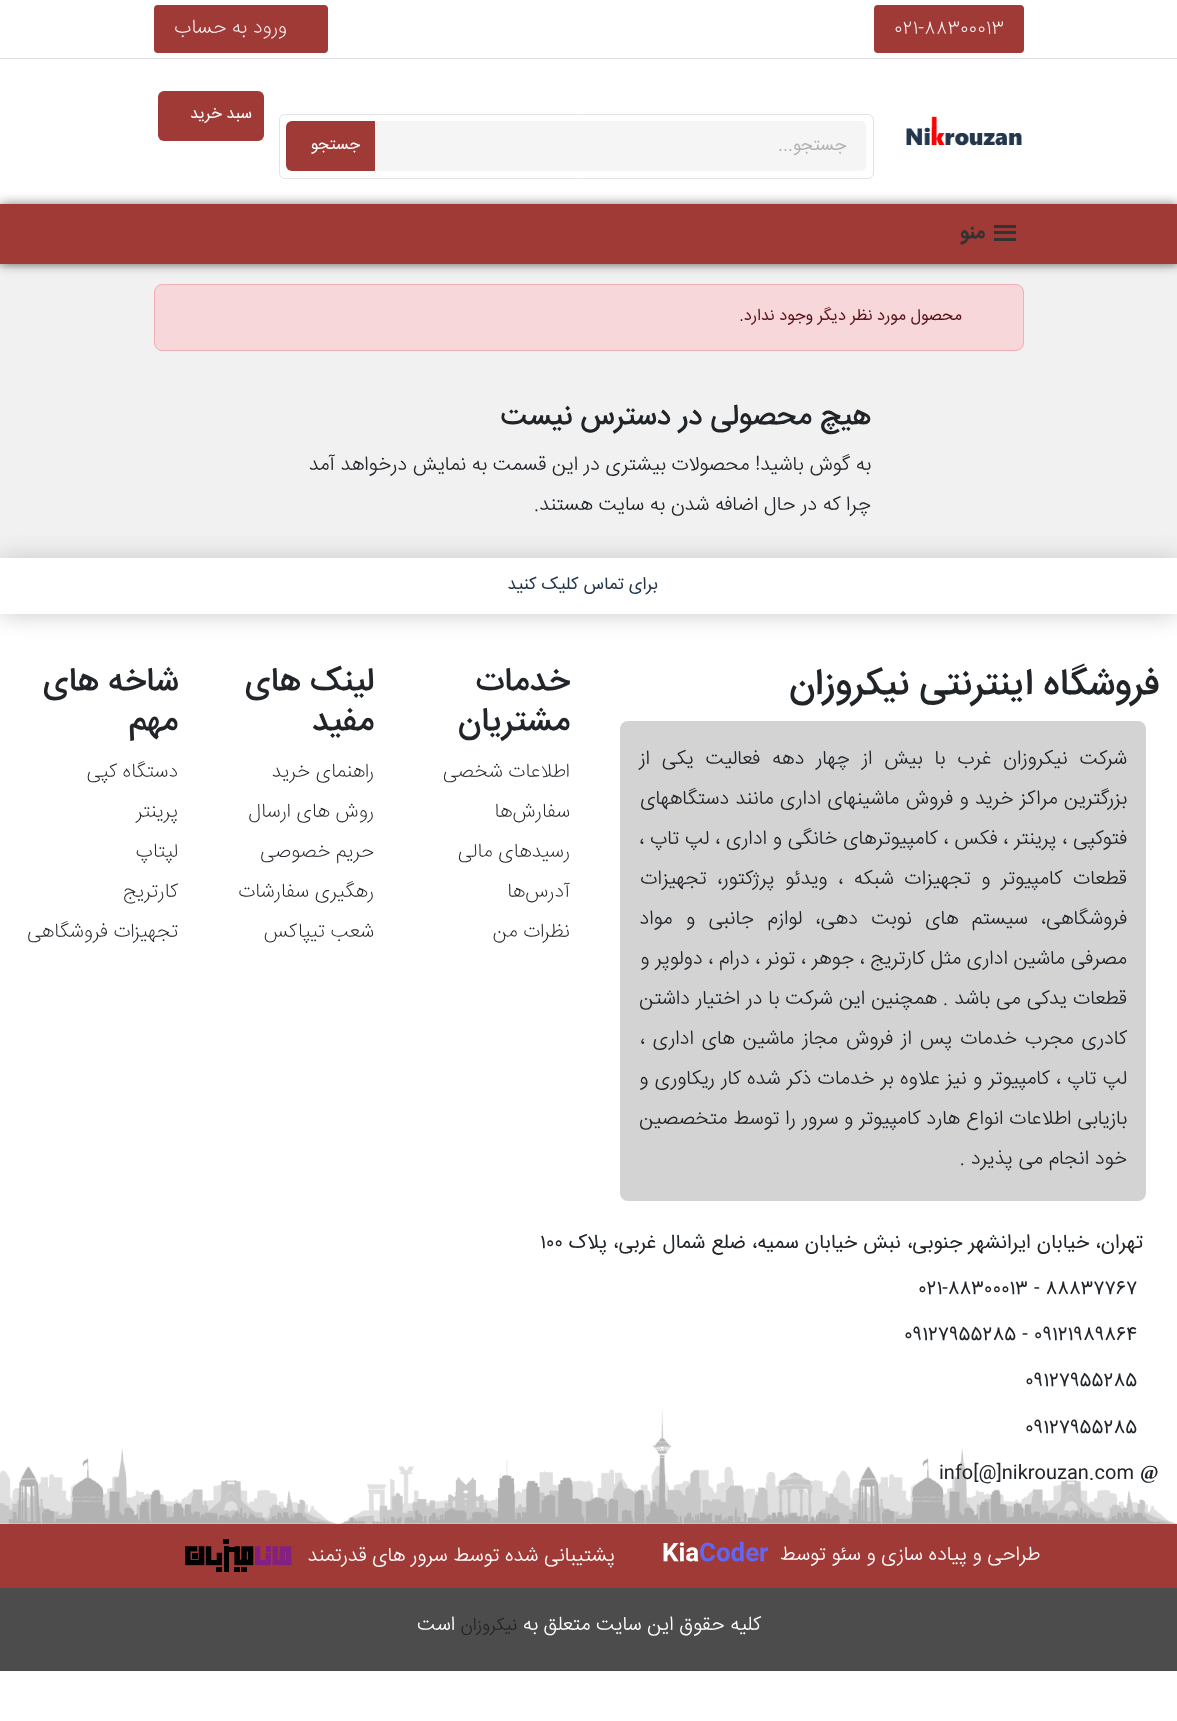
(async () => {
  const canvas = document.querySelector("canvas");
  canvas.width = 1177;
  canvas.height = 1721;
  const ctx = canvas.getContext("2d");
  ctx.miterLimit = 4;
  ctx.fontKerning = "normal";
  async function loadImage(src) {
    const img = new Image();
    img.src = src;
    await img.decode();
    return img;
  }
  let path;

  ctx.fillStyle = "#ffffff";
  ctx.fillRect(0, 0, 1177, 1721);
  ctx.fillStyle = "#f1f1f1";
  ctx.fillRect(0, 264, 1177, 294);
  ctx.save();
  ctx.beginPath();
  ctx.rect(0, 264, 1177, 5);
  ctx.clip();
  ctx.fillStyle = "rgba(0, 0, 0, 0.11)";
  ctx.filter = "blur(3px)";
  ctx.beginPath();
  ctx.rect(0, 3, 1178, 263);
  ctx.fill();
  ctx.filter = "none";
  ctx.restore();
  ctx.fillStyle = "#dddddd";
  ctx.fillRect(0, 58, 1177, 1);
  ctx.fillStyle = "#a03a36";
  ctx.beginPath();
  ctx.roundRect(874, 5, 150, 48, 4);
  ctx.fill();
  ctx.beginPath();
  ctx.roundRect(154, 5, 174, 48, 4);
  ctx.fill();
  ctx.drawImage(await loadImage("img/1.png"), 906, 116, 116, 30);
  ctx.beginPath();
  ctx.roundRect(158, 91, 106, 50, 6);
  ctx.fill();
  ctx.beginPath();
  ctx.roundRect(279.5, 114.5, 594, 64, 5.5);
  ctx.strokeStyle = "#e4e4e4";
  ctx.stroke();
  ctx.fillStyle = "#f5f5f5";
  ctx.beginPath();
  ctx.roundRect(286, 121, 580, 50, 5);
  ctx.fill();
  ctx.fillStyle = "#a03a36";
  ctx.beginPath();
  ctx.roundRect(286, 121, 89, 50, [6, 0, 0, 6]);
  ctx.fill();
  ctx.fillStyle = "rgba(0, 0, 0, 0.5)";
  ctx.filter = "blur(6px)";
  ctx.beginPath();
  ctx.rect(0, 204, 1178, 60);
  ctx.fill();
  ctx.filter = "none";
  for (const [x, y, w, h, color] of [
    [0, 204, 1177, 60, "#a03a36"],
    [994, 225, 22, 3, "#333333"],
    [994, 231, 22, 3, "#333333"],
    [994, 238, 22, 3, "#333333"],
  ]) {
    ctx.fillStyle = color;
    ctx.fillRect(x, y, w, h);
  }
  ctx.fillStyle = "#f8d7da";
  ctx.beginPath();
  ctx.roundRect(154.5, 284.5, 869, 66, 7.5);
  ctx.fill();
  ctx.strokeStyle = "#f1aeb5";
  ctx.stroke();
  ctx.save();
  path = new Path2D("M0 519H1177V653H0ZM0 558H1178V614H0Z");
  ctx.clip(path, "evenodd");
  ctx.fillStyle = "#c7c7c7";
  ctx.filter = "blur(12.5px)";
  ctx.beginPath();
  ctx.rect(0, 558, 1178, 56);
  ctx.fill();
  ctx.filter = "none";
  ctx.restore();
  ctx.drawImage(await loadImage("img/2.png"), 0, 1409, 1177, 115);
  ctx.fillStyle = "#d3d3d3";
  ctx.beginPath();
  ctx.roundRect(620, 721, 526, 480, 8);
  ctx.fill();
  ctx.fillStyle = "#a03a36";
  ctx.fillRect(0, 1524, 1177, 64);
  ctx.drawImage(await loadImage("img/3.png"), 185, 1539, 107, 33);
  ctx.fillStyle = "#4c4c4c";
  ctx.fillRect(0, 1588, 1177, 83);
  ctx.font = "200 20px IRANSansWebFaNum";
  ctx.fillStyle = "#ffffff";
  ctx.fillText("021-88300013", 894, 34);
  ctx.direction = "rtl";
  ctx.font = "200 20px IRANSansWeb";
  ctx.fillText("ورود به حساب", 287, 33);
  ctx.font = "16.25px IRANSansWeb";
  ctx.fillText("سبد خرید", 252, 118);
  ctx.font = "17.5px IRANSansWeb";
  ctx.fillStyle = "#b3b3b3";
  ctx.fillText("جستجو...", 846, 150);
  ctx.font = "16.25px IRANSansWeb";
  ctx.fillStyle = "#ffffff";
  ctx.fillText("جستجو", 360, 149);
  ctx.font = "bold 20px IRANSansWeb";
  ctx.fillStyle = "#333333";
  ctx.fillText("منو", 985, 238);
  ctx.font = "16.25px IRANSansWeb";
  ctx.fillStyle = "#58151c";
  ctx.fillText("محصول مورد نظر دیگر وجود ندارد.", 962, 320);
  ctx.font = "500 29px IRANSansWeb";
  ctx.fillStyle = "#212529";
  ctx.fillText("هیچ محصولی در دسترس نیست", 871, 424);
  ctx.font = "300 20px IRANSansWeb";
  ctx.fillText("به گوش باشید! محصولات بیشتری در این قسمت به نمایش درخواهد آمد", 871, 470);
  ctx.fillText("چرا که در حال اضافه شدن به سایت هستند.", 871, 510);
  ctx.font = "17.5px IRANSansWeb";
  ctx.fillStyle = "#23364b";
  ctx.fillText("برای تماس کلیک کنید", 658, 589);
  ctx.font = "500 37px IRANSansWeb";
  ctx.fillStyle = "#212529";
  ctx.fillText("فروشگاه اینترنتی نیکروزان", 1159, 694);
  ctx.wordSpacing = "6.25px";
  ctx.font = "300 20px IRANSansWeb";
  ctx.fillText("شرکت نیکروزان غرب با بیش از چهار دهه فعالیت یکی از", 1127, 764);
  ctx.wordSpacing = "0.75px";
  ctx.fillText("بزرگترین مراکز خرید و فروش ماشینهای اداری مانند دستگاههای", 1127, 804);
  ctx.wordSpacing = "0.2px";
  ctx.fillText("فتوکپی ، پرینتر ، فکس ، کامپیوترهای خانگی و اداری ، لپ تاپ ،", 1127, 844);
  ctx.wordSpacing = "5px";
  ctx.fillText("قطعات کامپیوتر و تجهیزات شبکه ، ویدئو پرژکتور، تجهیزات", 1127, 884);
  ctx.wordSpacing = "7.75px";
  ctx.fillText("فروشگاهی، سیستم های نوبت دهی، لوازم جانبی و مواد", 1127, 924);
  ctx.wordSpacing = "0.1px";
  ctx.fillText("مصرفی ماشین اداری مثل کارتریج ، جوهر ، تونر ، درام ، دولوپر و", 1127, 964);
  ctx.wordSpacing = "0.4px";
  ctx.fillText("قطعات یدکی می باشد . همچنین این شرکت با در اختیار داشتن", 1127, 1004);
  ctx.wordSpacing = "2.25px";
  ctx.fillText("کادری مجرب خدمات پس از فروش مجاز ماشین های اداری ،", 1127, 1044);
  ctx.wordSpacing = "0.7px";
  ctx.fillText("لپ تاپ ، کامپیوتر و نیز علاوه بر خدمات ذکر شده کار ریکاوری و", 1127, 1084);
  ctx.wordSpacing = "0.25px";
  ctx.fillText("بازیابی اطلاعات انواع هارد کامپیوتر و سرور را توسط متخصصین", 1127, 1124);
  ctx.wordSpacing = "0px";
  ctx.fillText("خود انجام می پذیرد .", 1127, 1164);
  ctx.font = "500 33px IRANSansWeb";
  ctx.fillText("خدمات", 570, 690);
  ctx.fillText("مشتریان", 570, 730);
  ctx.font = "200 20px IRANSansWeb";
  for (const [text, x, y] of [
    ["اطلاعات شخصی", 570, 777],
    ["سفارش‌ها", 570, 817],
    ["رسیدهای مالی", 570, 857],
    ["آدرس‌ها", 570, 897],
    ["نظرات من", 570, 937],
  ]) {
    ctx.fillText(text, x, y);
  }
  ctx.font = "500 33px IRANSansWeb";
  ctx.fillText("لینک های", 374, 690);
  ctx.fillText("مفید", 374, 730);
  ctx.font = "200 20px IRANSansWeb";
  for (const [text, x, y] of [
    ["راهنمای خرید", 374, 777],
    ["روش های ارسال", 374, 817],
    ["حریم خصوصی", 374, 857],
    ["رهگیری سفارشات", 374, 897],
    ["شعب تیپاکس", 374, 937],
  ]) {
    ctx.fillText(text, x, y);
  }
  ctx.font = "500 33px IRANSansWeb";
  ctx.fillText("شاخه های", 178, 690);
  ctx.fillText("مهم", 178, 730);
  ctx.font = "200 20px IRANSansWeb";
  for (const [text, x, y] of [
    ["دستگاه کپی", 178, 777],
    ["پرینتر", 178, 817],
    ["لپتاپ", 178, 857],
    ["کارتریج", 178, 897],
    ["تجهیزات فروشگاهی", 178, 937],
  ]) {
    ctx.fillText(text, x, y);
  }
  ctx.font = "20px IRANSansWebFaNum";
  ctx.fillText("تهران، خیابان ایرانشهر جنوبی، نبش خیابان سمیه، ضلع شمال غربی، پلاک", 1143, 1248);
  ctx.direction = "ltr";
  for (const [text, x, y] of [
    ["100", 540, 1248],
    ["021-88300013 - 88837767", 918, 1294],
    ["09127955285 - 09121989864", 904, 1340],
    ["09127955285", 1025, 1386],
    ["09127955285", 1025, 1433],
  ]) {
    ctx.fillText(text, x, y);
  }
  ctx.font = "bold 20px Liberation Serif";
  ctx.fillText("@", 1140, 1479);
  ctx.font = "20px IRANSansWebFaNum";
  ctx.fillText("info[@]nikrouzan.com", 939, 1479);
  ctx.direction = "rtl";
  ctx.font = "300 20px IRANSansWeb";
  ctx.fillStyle = "#ffffff";
  ctx.fillText("طراحی و پیاده سازی و سئو توسط", 1040, 1560);
  ctx.direction = "ltr";
  ctx.font = "bold 24px IRANSansWeb";
  ctx.fillStyle = "#6366f1";
  ctx.fillText("Coder", 699, 1560);
  ctx.fillStyle = "#ffffff";
  ctx.fillText("Kia", 662, 1560);
  ctx.direction = "rtl";
  ctx.font = "300 20px IRANSansWeb";
  ctx.fillText("پشتیبانی شده توسط سرور های قدرتمند", 615, 1561);
  ctx.fillText("کليه حقوق اين سایت متعلق به", 761, 1630);
  ctx.font = "300 17.5px IRANSansWeb";
  ctx.fillStyle = "#212529";
  ctx.fillText("نیکروزان", 517, 1630);
  ctx.font = "300 20px IRANSansWeb";
  ctx.fillStyle = "#ffffff";
  ctx.fillText("است", 455, 1630);
})();
